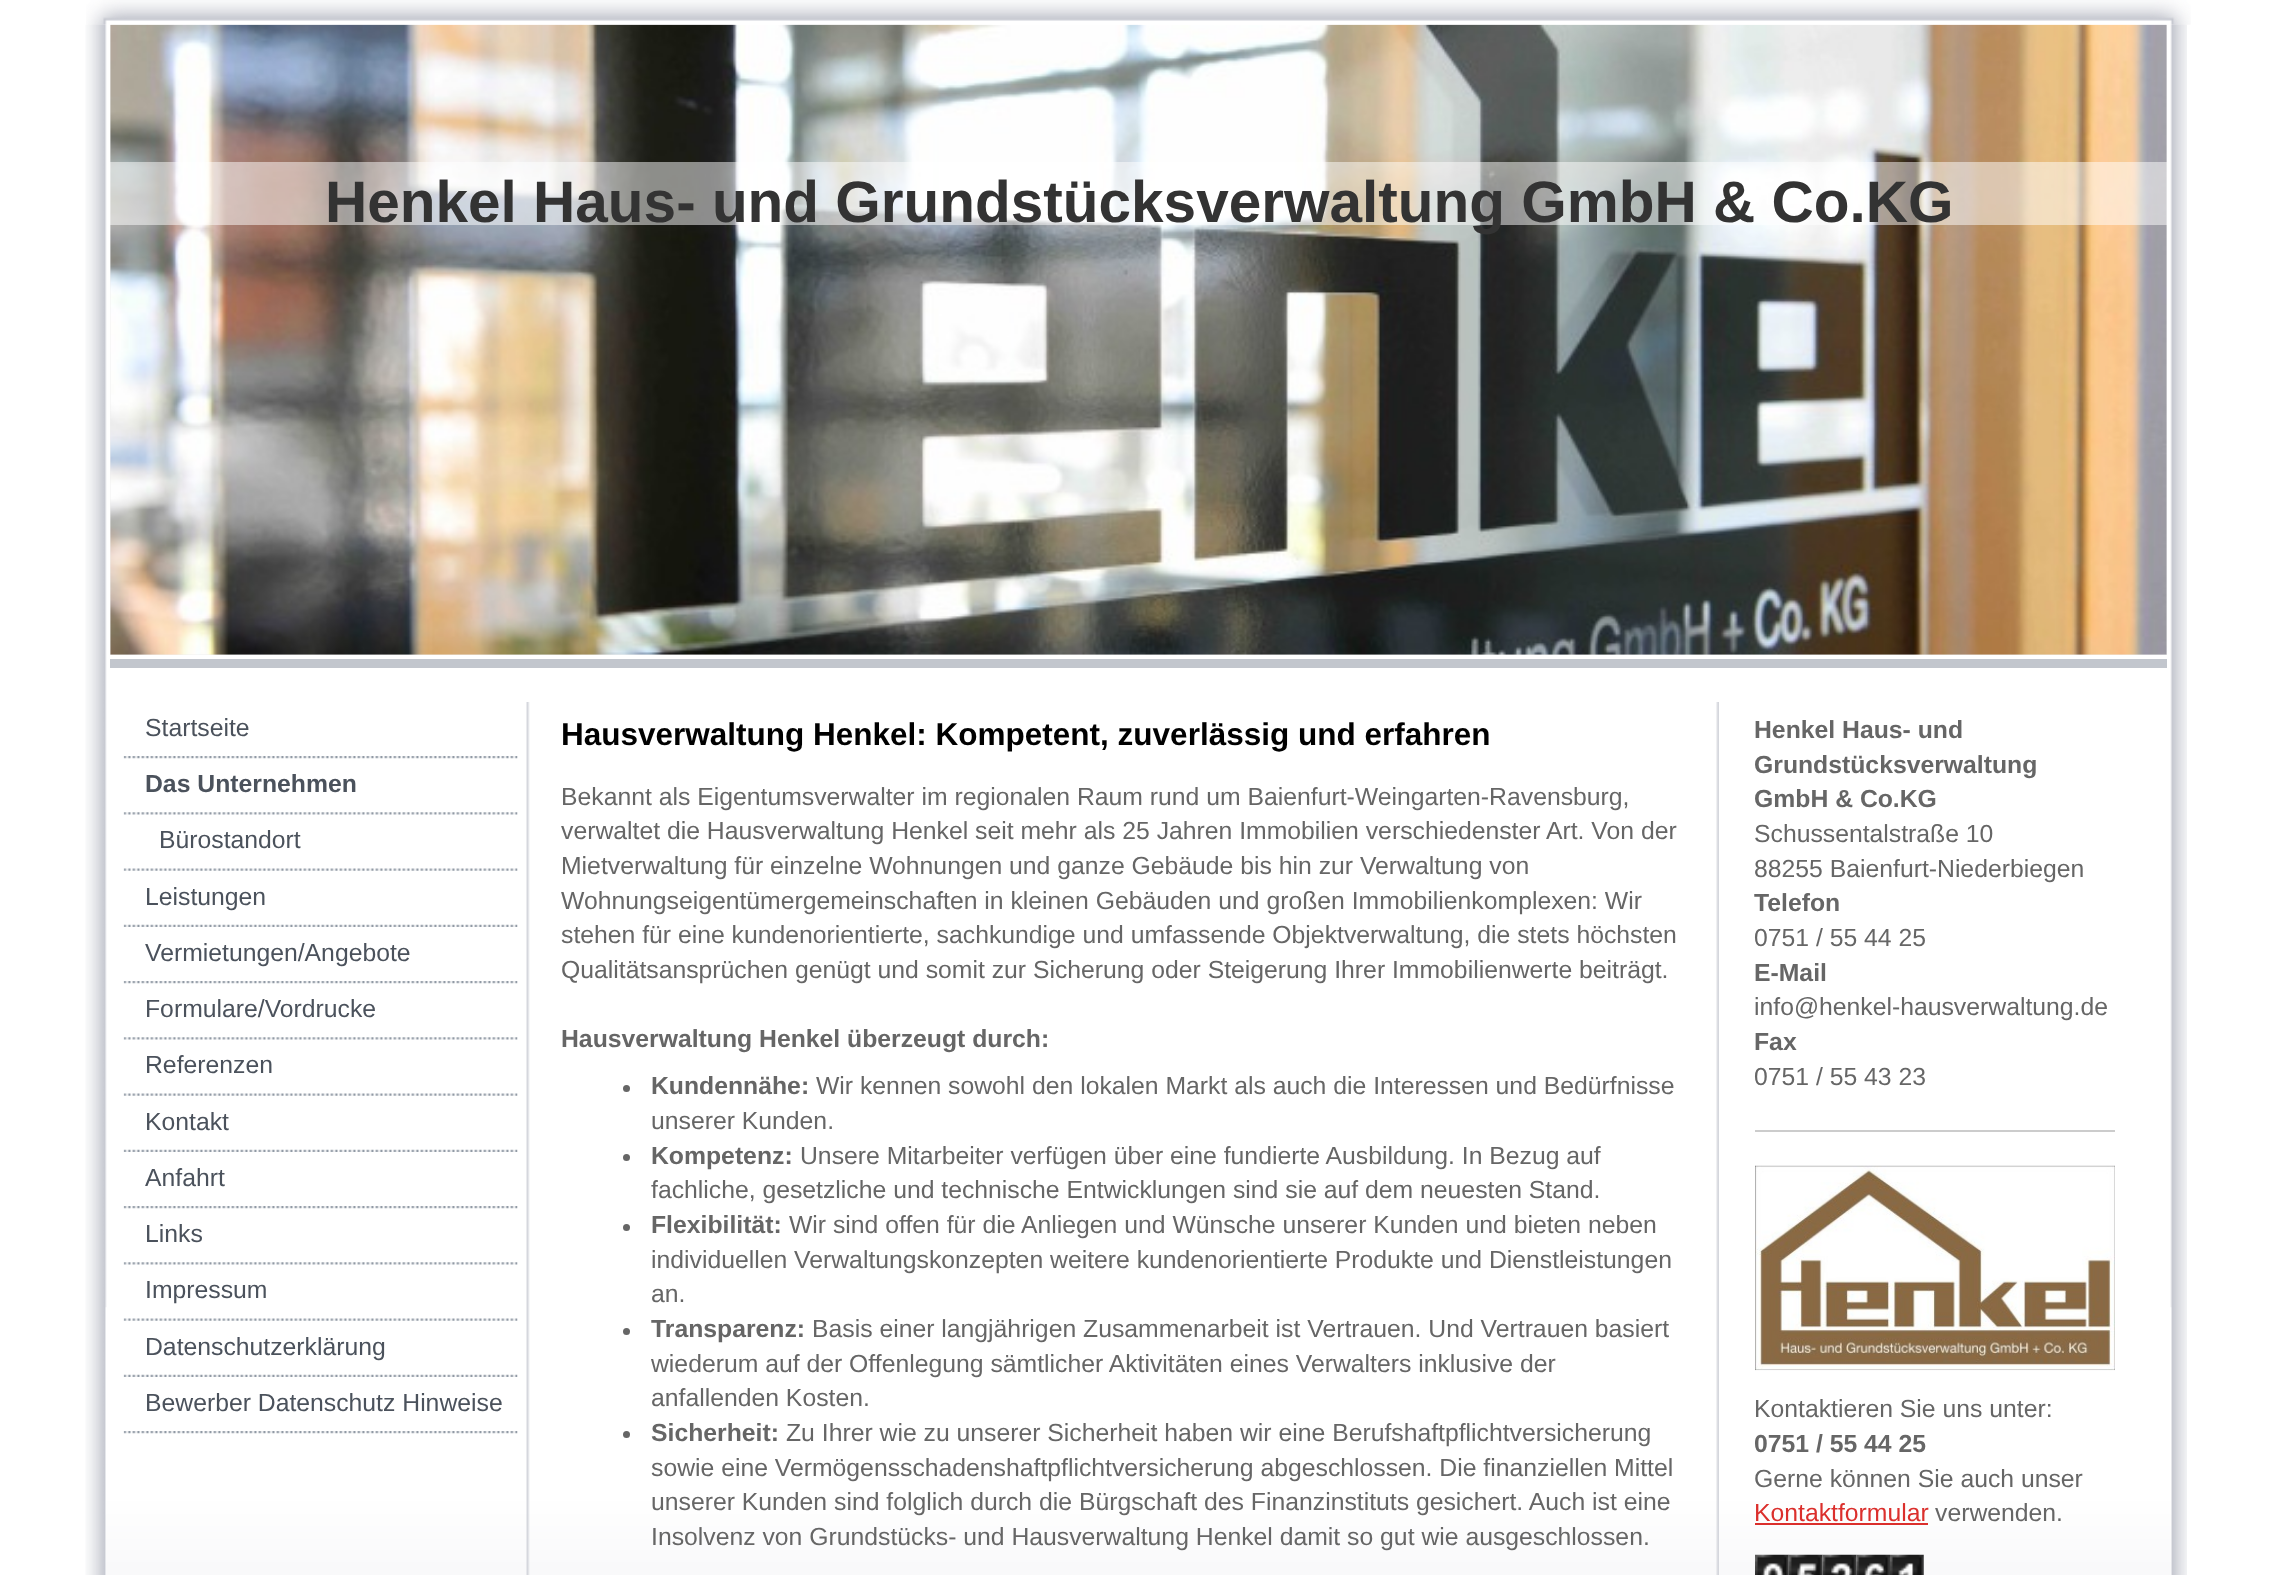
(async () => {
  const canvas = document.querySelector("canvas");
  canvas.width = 2273;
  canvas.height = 1575;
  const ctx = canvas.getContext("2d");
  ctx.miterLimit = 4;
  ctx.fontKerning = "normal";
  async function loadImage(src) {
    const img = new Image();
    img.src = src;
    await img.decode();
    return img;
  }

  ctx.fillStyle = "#ffffff";
  ctx.fillRect(0, 0, 2273, 1575);
  ctx.drawImage(await loadImage("img/1.png"), 86, 0, 2105, 25);
  ctx.drawImage(await loadImage("img/2.png"), 85, 24, 2102, 1551);
  ctx.fillStyle = "#c2c6cd";
  ctx.fillRect(110, 659, 2057, 9);
  ctx.drawImage(await loadImage("img/3.png"), 110, 24, 2057, 1);
  ctx.fillStyle = "#eeeeee";
  ctx.fillRect(110, 25, 2057, 630);
  ctx.drawImage(await loadImage("img/4.png"), 110, 24, 2057, 631);
  ctx.fillStyle = "rgba(255, 255, 255, 0.5)";
  ctx.fillRect(110, 162, 2057, 63);
  ctx.drawImage(await loadImage("img/5.png"), 105, 1307, 2067, 268);
  ctx.drawImage(await loadImage("img/6.png"), 526, 702, 1193, 873);
  ctx.drawImage(await loadImage("img/7.png"), 123, 756, 395, 3);
  ctx.drawImage(await loadImage("img/8.png"), 123, 812, 395, 3);
  ctx.drawImage(await loadImage("img/9.png"), 123, 868, 395, 3);
  ctx.drawImage(await loadImage("img/10.png"), 123, 924, 395, 3);
  ctx.drawImage(await loadImage("img/7.png"), 123, 981, 395, 3);
  ctx.drawImage(await loadImage("img/8.png"), 123, 1037, 395, 3);
  ctx.drawImage(await loadImage("img/9.png"), 123, 1093, 395, 3);
  ctx.drawImage(await loadImage("img/10.png"), 123, 1149, 395, 3);
  ctx.drawImage(await loadImage("img/7.png"), 123, 1206, 395, 3);
  ctx.drawImage(await loadImage("img/8.png"), 123, 1262, 395, 3);
  ctx.drawImage(await loadImage("img/9.png"), 123, 1318, 395, 3);
  ctx.drawImage(await loadImage("img/10.png"), 123, 1374, 395, 3);
  ctx.drawImage(await loadImage("img/7.png"), 123, 1431, 395, 3);
  ctx.fillStyle = "#666666";
  ctx.beginPath();
  ctx.arc(626.5, 1088.5, 3.5, 0, Math.PI * 2);
  ctx.fill();
  ctx.beginPath();
  ctx.arc(626.5, 1157.5, 3.5, 0, Math.PI * 2);
  ctx.fill();
  ctx.beginPath();
  ctx.arc(626.5, 1227.5, 3.5, 0, Math.PI * 2);
  ctx.fill();
  ctx.beginPath();
  ctx.arc(626.5, 1331.5, 3.5, 0, Math.PI * 2);
  ctx.fill();
  ctx.beginPath();
  ctx.arc(626.5, 1434.5, 3.5, 0, Math.PI * 2);
  ctx.fill();
  ctx.fillStyle = "#cccccc";
  ctx.fillRect(1755, 1130, 360, 2);
  ctx.drawImage(await loadImage("img/11.png"), 1755, 1165, 360, 206);
  ctx.fillStyle = "#db2f2c";
  ctx.fillRect(1755, 1523, 173, 2);
  ctx.drawImage(await loadImage("img/12.png"), 1755, 1554, 34, 21);
  ctx.drawImage(await loadImage("img/13.png"), 1788, 1554, 35, 21);
  ctx.drawImage(await loadImage("img/14.png"), 1822, 1554, 35, 21);
  ctx.drawImage(await loadImage("img/15.png"), 1856, 1554, 34, 21);
  ctx.drawImage(await loadImage("img/16.png"), 1890, 1554, 34, 21);
  ctx.font = "bold 58.5px Liberation Sans";
  ctx.fillStyle = "#333333";
  ctx.fillText("Henkel Haus- und Grundstücksverwaltung GmbH & Co.KG", 325, 222);
  ctx.font = "24.75px Liberation Sans";
  ctx.fillStyle = "#4b525c";
  ctx.fillText("Startseite", 145, 736);
  ctx.font = "bold 24.75px Liberation Sans";
  ctx.fillText("Das Unternehmen", 145, 792);
  ctx.font = "24.75px Liberation Sans";
  for (const [text, x, y] of [
    ["Bürostandort", 159, 848],
    ["Leistungen", 145, 905],
    ["Vermietungen/Angebote", 145, 961],
    ["Formulare/Vordrucke", 145, 1017],
    ["Referenzen", 145, 1073],
    ["Kontakt", 145, 1130],
    ["Anfahrt", 145, 1186],
    ["Links", 145, 1242],
    ["Impressum", 145, 1298],
    ["Datenschutzerklärung", 145, 1355],
    ["Bewerber Datenschutz Hinweise", 145, 1411],
  ]) {
    ctx.fillText(text, x, y);
  }
  ctx.font = "bold 31.5px Liberation Sans";
  ctx.fillStyle = "#000000";
  ctx.fillText("Hausverwaltung Henkel: Kompetent, zuverlässig und erfahren", 561, 745);
  ctx.font = "24.75px Liberation Sans";
  ctx.fillStyle = "#666666";
  for (const [text, x, y] of [
    ["Bekannt als Eigentumsverwalter im regionalen Raum rund um Baienfurt-Weingarten-Ravensburg,", 561, 805],
    ["verwaltet die Hausverwaltung Henkel seit mehr als 25 Jahren Immobilien verschiedenster Art. Von der", 561, 839],
    ["Mietverwaltung für einzelne Wohnungen und ganze Gebäude bis hin zur Verwaltung von", 561, 874],
    ["Wohnungseigentümergemeinschaften in kleinen Gebäuden und großen Immobilienkomplexen: Wir", 561, 909],
    ["stehen für eine kundenorientierte, sachkundige und umfassende Objektverwaltung, die stets höchsten", 561, 943],
    ["Qualitätsansprüchen genügt und somit zur Sicherung oder Steigerung Ihrer Immobilienwerte beiträgt.", 561, 978],
  ]) {
    ctx.fillText(text, x, y);
  }
  ctx.font = "bold 24.75px Liberation Sans";
  ctx.fillText("Hausverwaltung Henkel überzeugt durch:", 561, 1047);
  ctx.fillText("Kundennähe:", 651, 1094);
  ctx.font = "24.75px Liberation Sans";
  ctx.fillText("Wir kennen sowohl den lokalen Markt als auch die Interessen und Bedürfnisse", 816, 1094);
  ctx.fillText("unserer Kunden.", 651, 1129);
  ctx.font = "bold 24.75px Liberation Sans";
  ctx.fillText("Kompetenz:", 651, 1164);
  ctx.font = "24.75px Liberation Sans";
  ctx.fillText("Unsere Mitarbeiter verfügen über eine fundierte Ausbildung. In Bezug auf", 800, 1164);
  ctx.fillText("fachliche, gesetzliche und technische Entwicklungen sind sie auf dem neuesten Stand.", 651, 1198);
  ctx.font = "bold 24.75px Liberation Sans";
  ctx.fillText("Flexibilität:", 651, 1233);
  ctx.font = "24.75px Liberation Sans";
  for (const [text, x, y] of [
    ["Wir sind offen für die Anliegen und Wünsche unserer Kunden und bieten neben", 789, 1233],
    ["individuellen Verwaltungskonzepten weitere kundenorientierte Produkte und Dienstleistungen", 651, 1268],
    ["an.", 651, 1302],
  ]) {
    ctx.fillText(text, x, y);
  }
  ctx.font = "bold 24.75px Liberation Sans";
  ctx.fillText("Transparenz:", 651, 1337);
  ctx.font = "24.75px Liberation Sans";
  for (const [text, x, y] of [
    ["Basis einer langjährigen Zusammenarbeit ist Vertrauen. Und Vertrauen basiert", 812, 1337],
    ["wiederum auf der Offenlegung sämtlicher Aktivitäten eines Verwalters inklusive der", 651, 1372],
    ["anfallenden Kosten.", 651, 1406],
  ]) {
    ctx.fillText(text, x, y);
  }
  ctx.font = "bold 24.75px Liberation Sans";
  ctx.fillText("Sicherheit:", 651, 1441);
  ctx.font = "24.75px Liberation Sans";
  for (const [text, x, y] of [
    ["Zu Ihrer wie zu unserer Sicherheit haben wir eine Berufshaftpflichtversicherung", 786, 1441],
    ["sowie eine Vermögensschadenshaftpflichtversicherung abgeschlossen. Die finanziellen Mittel", 651, 1476],
    ["unserer Kunden sind folglich durch die Bürgschaft des Finanzinstituts gesichert. Auch ist eine", 651, 1510],
    ["Insolvenz von Grundstücks- und Hausverwaltung Henkel damit so gut wie ausgeschlossen.", 651, 1545],
  ]) {
    ctx.fillText(text, x, y);
  }
  ctx.font = "bold 24.75px Liberation Sans";
  for (const [text, x, y] of [
    ["Henkel Haus- und", 1754, 738],
    ["Grundstücksverwaltung", 1754, 773],
    ["GmbH & Co.KG", 1754, 807],
  ]) {
    ctx.fillText(text, x, y);
  }
  ctx.font = "24.75px Liberation Sans";
  ctx.fillText("Schussentalstraße 10", 1754, 842);
  ctx.fillText("88255 Baienfurt-Niederbiegen", 1754, 877);
  ctx.font = "bold 24.75px Liberation Sans";
  ctx.fillText("Telefon", 1754, 911);
  ctx.font = "24.75px Liberation Sans";
  ctx.fillText("0751 / 55 44 25", 1754, 946);
  ctx.font = "bold 24.75px Liberation Sans";
  ctx.fillText("E-Mail", 1754, 981);
  ctx.font = "24.75px Liberation Sans";
  ctx.fillText("info@henkel-hausverwaltung.de", 1754, 1015);
  ctx.font = "bold 24.75px Liberation Sans";
  ctx.fillText("Fax", 1754, 1050);
  ctx.font = "24.75px Liberation Sans";
  ctx.fillText("0751 / 55 43 23", 1754, 1085);
  ctx.fillText("Kontaktieren Sie uns unter:", 1754, 1417);
  ctx.font = "bold 24.75px Liberation Sans";
  ctx.fillText("0751 / 55 44 25", 1754, 1452);
  ctx.font = "24.75px Liberation Sans";
  ctx.fillText("Gerne können Sie auch unser", 1754, 1487);
  ctx.fillStyle = "#db2f2c";
  ctx.fillText("Kontaktformular", 1754, 1521);
  ctx.fillStyle = "#666666";
  ctx.fillText("verwenden.", 1935, 1521);
})();
